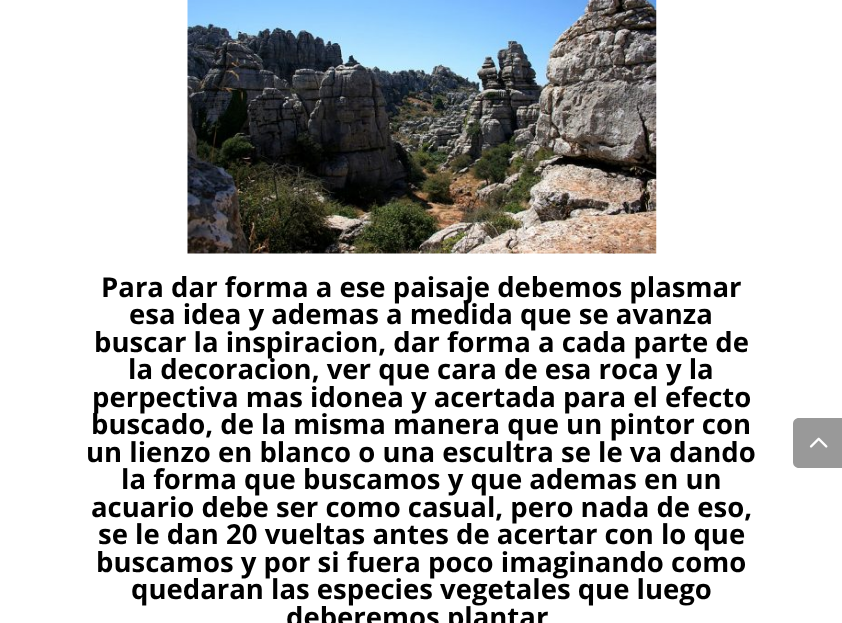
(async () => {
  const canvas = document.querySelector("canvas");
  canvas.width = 842;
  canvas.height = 623;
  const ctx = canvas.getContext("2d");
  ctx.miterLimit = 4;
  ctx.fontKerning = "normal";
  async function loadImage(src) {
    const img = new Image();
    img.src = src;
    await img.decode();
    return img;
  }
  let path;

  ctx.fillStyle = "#ffffff";
  ctx.fillRect(0, 0, 842, 623);
  ctx.drawImage(await loadImage("img/1.png"), 187, 0, 470, 254);
  ctx.fillStyle = "#999999";
  path = new Path2D("M799 418H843V468H799C795.5 468 793 465.5 793 462V424C793 420.5 795.5 418 799 418Z");
  ctx.fill(path);
  ctx.drawImage(await loadImage("img/2.png"), 809, 437, 19, 11);
  ctx.font = "bold 27.5px Open Sans";
  ctx.fillStyle = "#000000";
  for (const [text, x, y] of [
    ["Para dar forma a ese paisaje debemos plasmar", 101, 297],
    ["esa idea y ademas a medida que se avanza", 129, 324],
    ["buscar la inspiracion, dar forma a cada parte de", 94, 352],
    ["la decoracion, ver que cara de esa roca y la", 128, 379],
    ["perpectiva mas idonea y acertada para el efecto", 92, 407],
    ["buscado, de la misma manera que un pintor con", 91, 434],
    ["un lienzo en blanco o una escultra se le va dando", 86, 462],
    ["la forma que buscamos y que ademas en un", 121, 489],
    ["acuario debe ser como casual, pero nada de eso,", 91, 517],
    ["se le dan 20 vueltas antes de acertar con lo que", 98, 544],
    ["buscamos y por si fuera poco imaginando como", 96, 572],
    ["quedaran las especies vegetales que luego", 131, 599],
    ["deberemos plantar", 286, 627],
  ]) {
    ctx.fillText(text, x, y);
  }
})();
